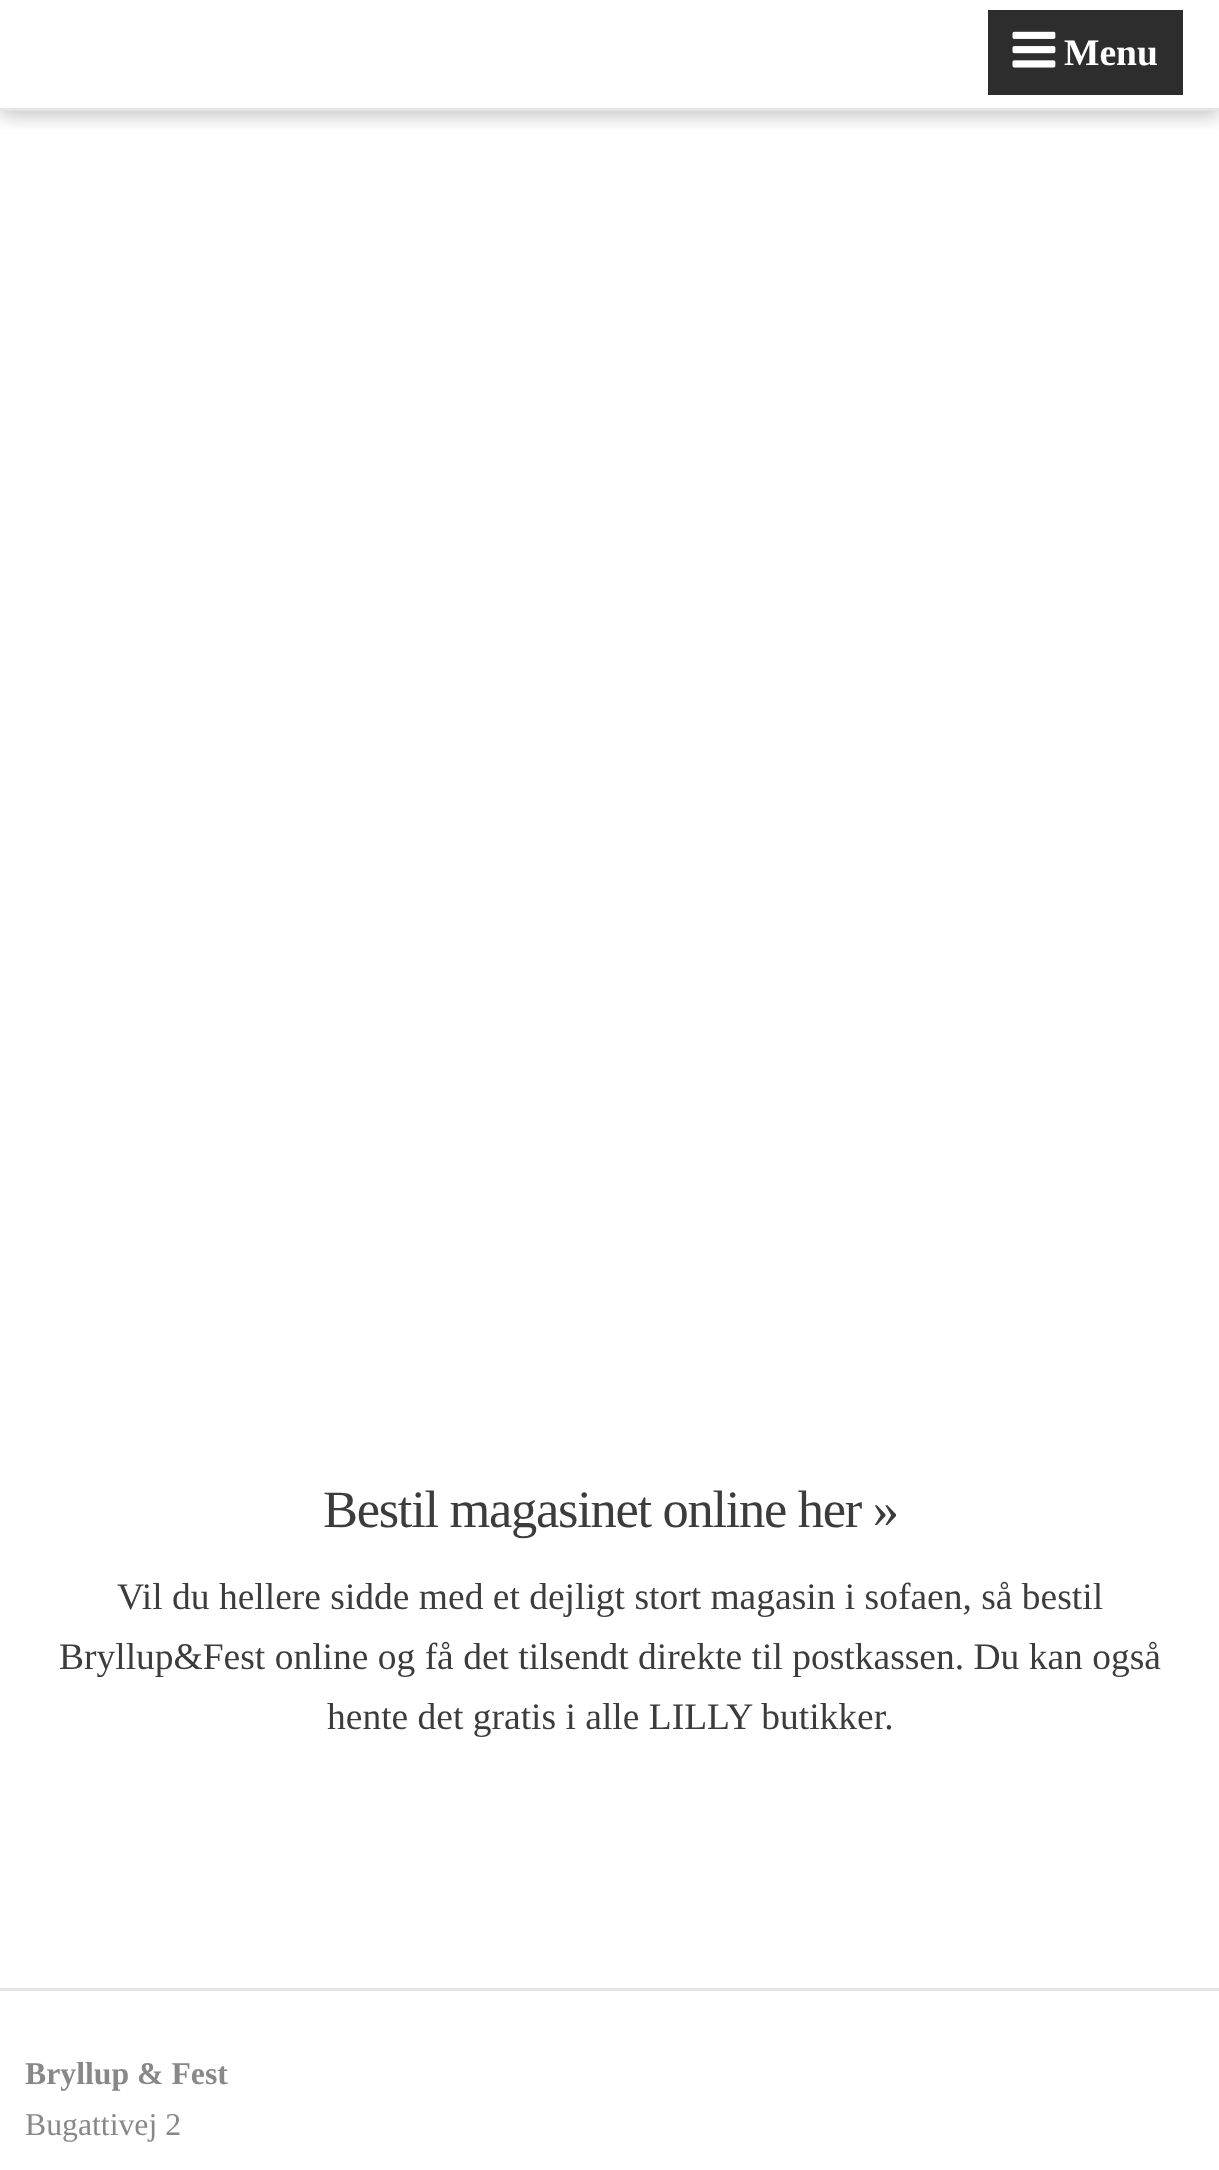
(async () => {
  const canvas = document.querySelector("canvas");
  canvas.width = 1219;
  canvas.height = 2170;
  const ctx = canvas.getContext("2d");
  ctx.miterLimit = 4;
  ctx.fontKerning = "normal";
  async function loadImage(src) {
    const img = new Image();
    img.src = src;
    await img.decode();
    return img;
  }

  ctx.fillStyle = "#ffffff";
  ctx.fillRect(0, 0, 1219, 2170);
  ctx.save();
  ctx.beginPath();
  ctx.rect(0, 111, 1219, 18);
  ctx.clip();
  ctx.fillStyle = "rgba(0, 0, 0, 0.25)";
  ctx.filter = "blur(10px)";
  ctx.beginPath();
  ctx.rect(0, 5, 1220, 110);
  ctx.fill();
  ctx.filter = "none";
  ctx.restore();
  ctx.fillStyle = "#e5e5e5";
  ctx.fillRect(0, 108, 1219, 3);
  ctx.fillStyle = "#2d2d2d";
  ctx.fillRect(988, 10, 195, 85);
  ctx.drawImage(await loadImage("img/1.png"), 1012, 31, 44, 37);
  ctx.fillStyle = "#e5e5e5";
  ctx.fillRect(0, 1988, 1219, 3);
  ctx.font = "bold 37.5px Liberation Serif";
  ctx.fillStyle = "#ffffff";
  ctx.fillText("Menu", 1064, 65);
  ctx.letterSpacing = "-1.3px";
  ctx.font = "52.5px Liberation Serif";
  ctx.fillStyle = "#3c3c3c";
  ctx.fillText("Bestil magasinet online her »", 323, 1527);
  ctx.letterSpacing = "0px";
  ctx.font = "37.5px Liberation Serif";
  for (const [text, x, y] of [
    ["Vil du hellere sidde med et dejligt stort magasin i sofaen, så bestil", 117, 1609],
    ["Bryllup&Fest online og få det tilsendt direkte til postkassen. Du kan også", 59, 1669],
    ["hente det gratis i alle LILLY butikker.", 327, 1729],
  ]) {
    ctx.fillText(text, x, y);
  }
  ctx.font = "bold 31.75px Liberation Serif";
  ctx.fillStyle = "#888888";
  ctx.fillText("Bryllup & Fest", 25, 2084);
  ctx.font = "31.75px Liberation Serif";
  ctx.fillText("Bugattivej 2", 25, 2135);
})();
